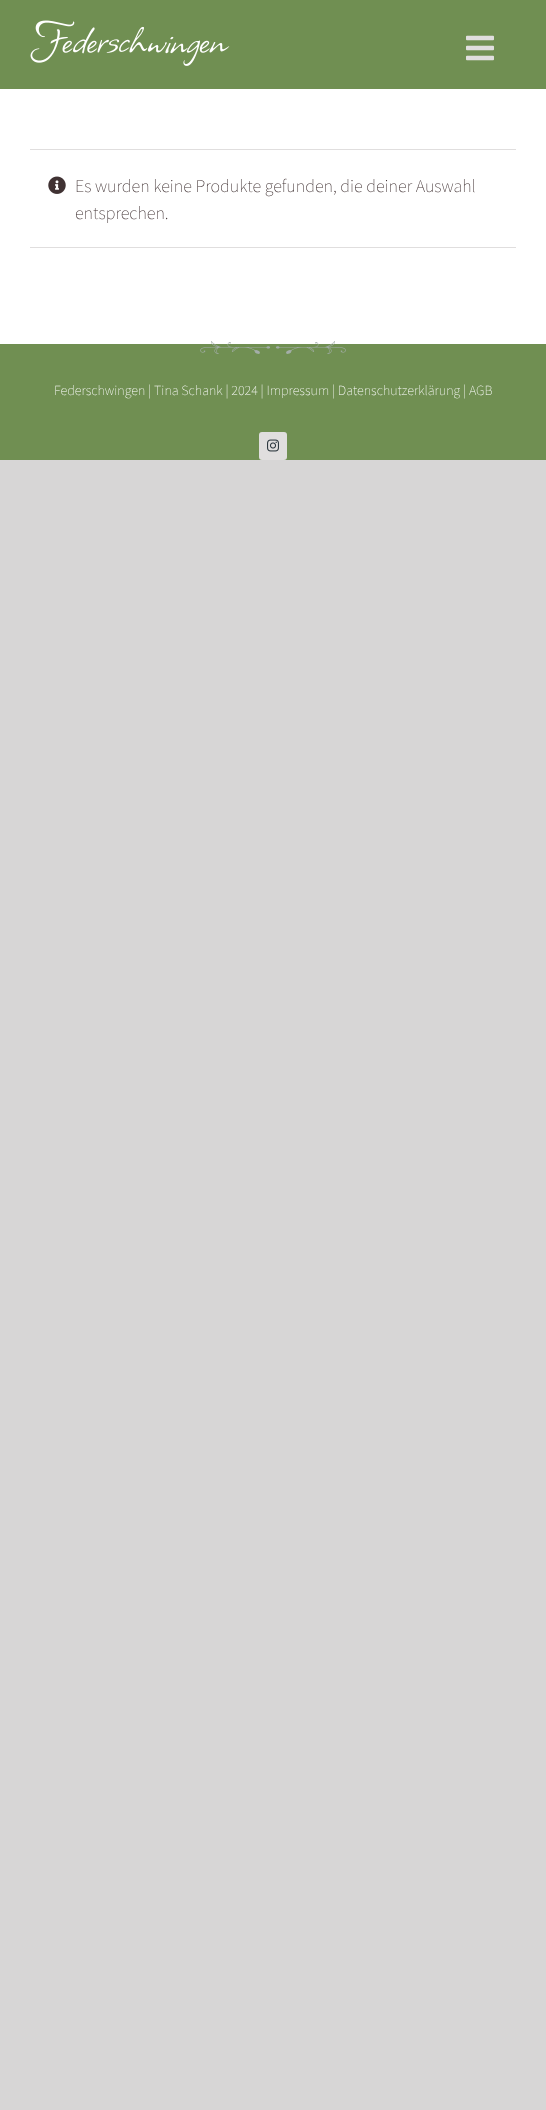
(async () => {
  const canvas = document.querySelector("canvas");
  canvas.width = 546;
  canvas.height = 2110;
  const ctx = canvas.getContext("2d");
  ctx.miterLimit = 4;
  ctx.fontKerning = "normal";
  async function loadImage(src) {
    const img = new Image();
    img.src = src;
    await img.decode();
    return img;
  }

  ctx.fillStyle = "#d7d6d6";
  ctx.fillRect(0, 0, 546, 2110);
  ctx.fillStyle = "#ffffff";
  ctx.fillRect(0, 89, 546, 255);
  ctx.fillStyle = "#708f52";
  ctx.fillRect(0, 0, 546, 89);
  ctx.drawImage(await loadImage("img/1.png"), 30, 20, 200, 46);
  ctx.drawImage(await loadImage("img/2.png"), 466, 35, 28, 26);
  ctx.fillStyle = "#e0dede";
  ctx.fillRect(30, 149, 486, 1);
  ctx.fillRect(30, 247, 486, 1);
  ctx.drawImage(await loadImage("img/3.png"), 48, 176, 18, 18);
  ctx.fillStyle = "#708f52";
  ctx.fillRect(0, 344, 546, 116);
  ctx.drawImage(await loadImage("img/4.png"), 200, 341, 146, 13);
  ctx.fillStyle = "#e0dede";
  ctx.beginPath();
  ctx.roundRect(259, 432, 28, 28, 3);
  ctx.fill();
  ctx.drawImage(await loadImage("img/5.png"), 267, 439, 12, 13);
  ctx.font = "200 18px Assistant";
  ctx.fillStyle = "#403233";
  ctx.fillText("Es wurden keine Produkte gefunden, die deiner Auswahl", 75, 192);
  ctx.fillText("entsprechen.", 75, 219);
  ctx.font = "200 14px Assistant";
  ctx.fillStyle = "#ffffff";
  ctx.fillText("Federschwingen | Tina Schank | 2024 | Impressum | Datenschutzerklärung | AGB", 54, 395);
})();
